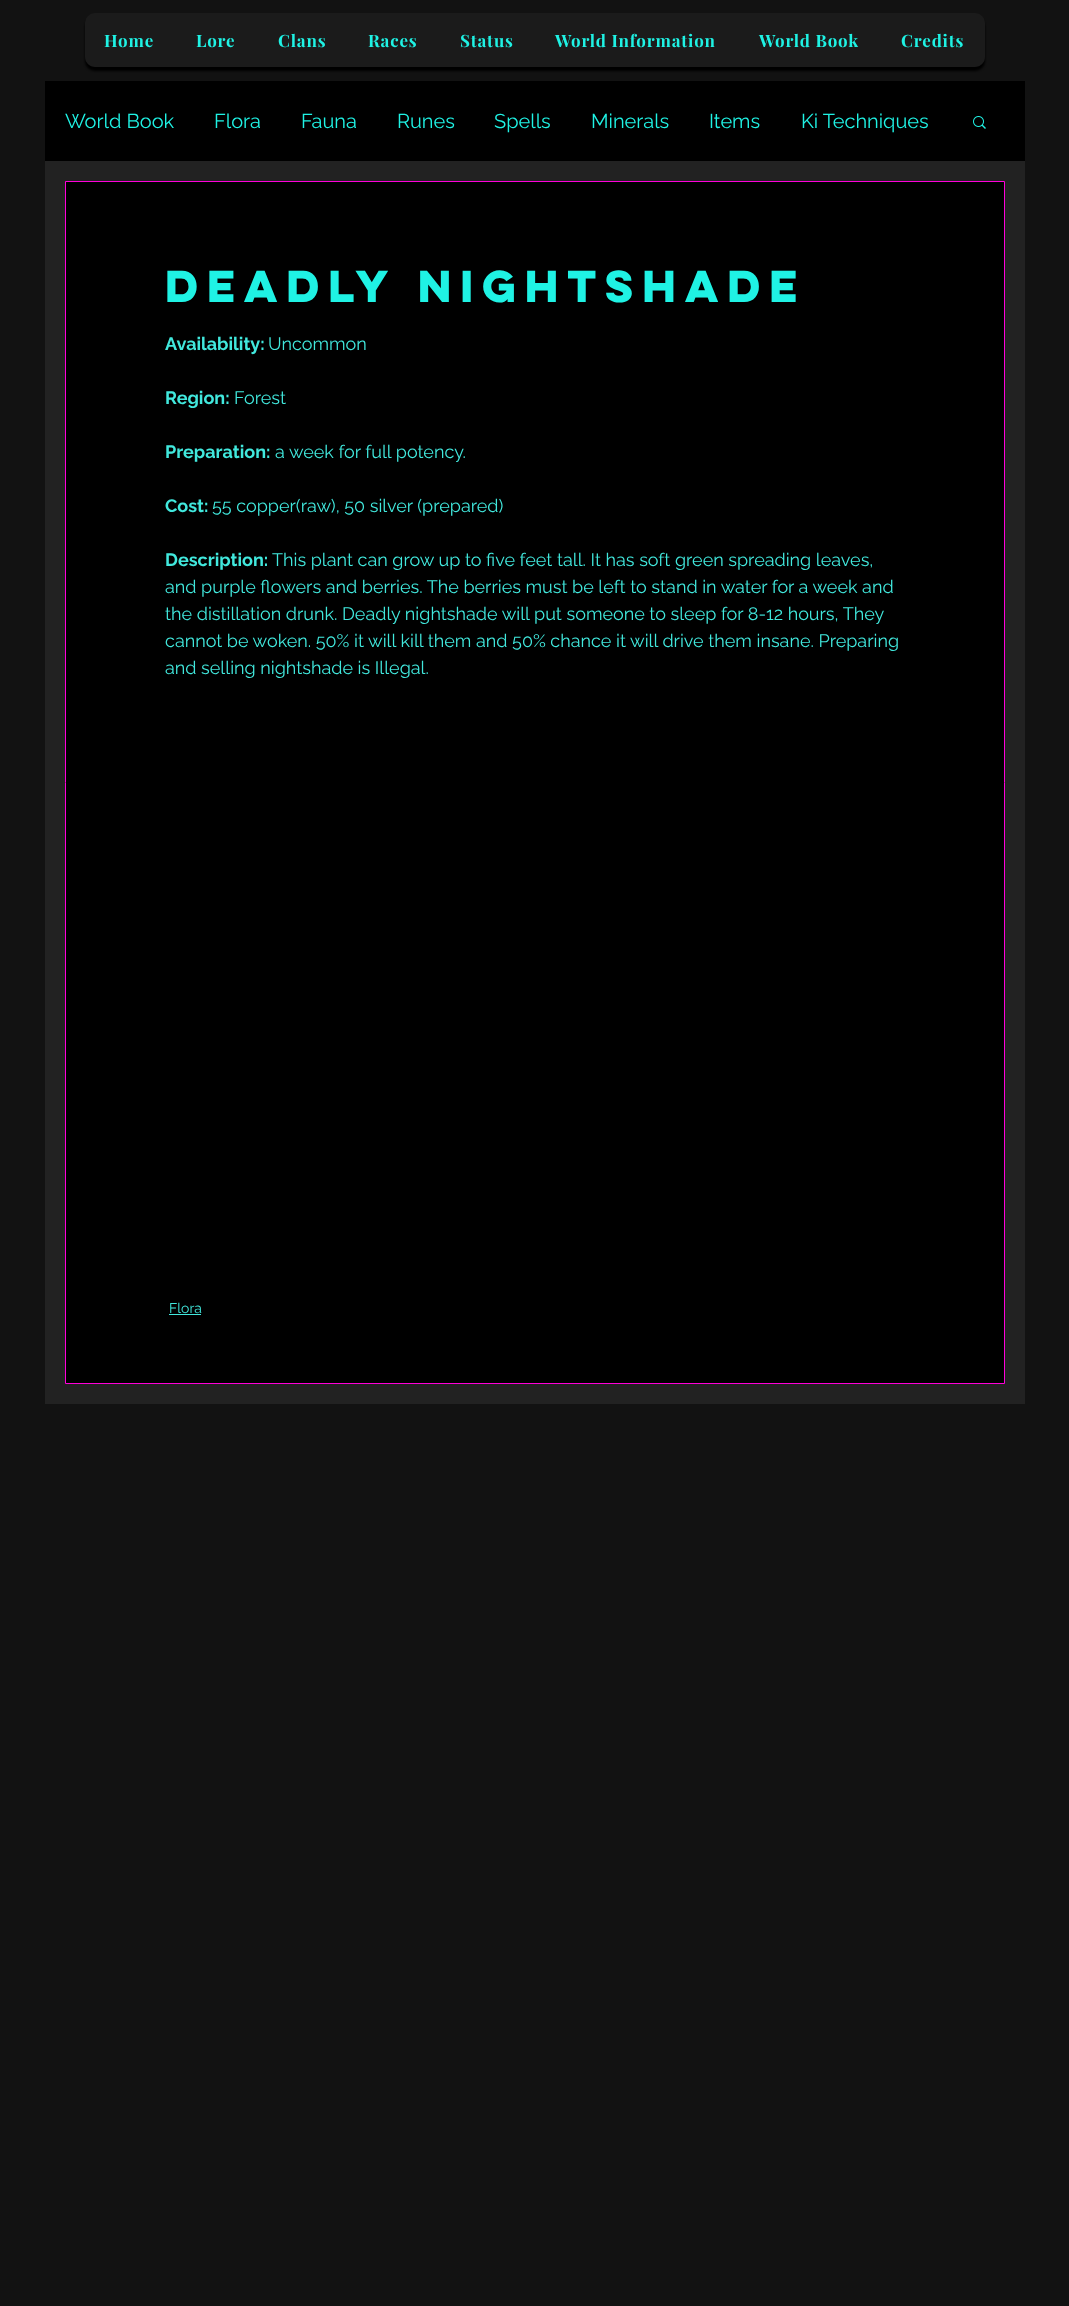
(async () => {
  const canvas = document.querySelector("canvas");
  canvas.width = 1069;
  canvas.height = 2306;
  const ctx = canvas.getContext("2d");
  ctx.miterLimit = 4;
  ctx.fontKerning = "normal";
  async function loadImage(src) {
    const img = new Image();
    img.src = src;
    await img.decode();
    return img;
  }
  let path;

  ctx.fillStyle = "#121212";
  ctx.fillRect(0, 0, 1069, 2306);
  ctx.save();
  path = new Path2D("M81 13H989V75H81ZM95 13H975C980.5 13 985 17.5 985 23V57C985 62.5 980.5 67 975 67H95C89.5 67 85 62.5 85 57V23C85 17.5 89.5 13 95 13Z");
  ctx.clip(path, "evenodd");
  ctx.fillStyle = "#000000";
  ctx.filter = "blur(1px)";
  ctx.beginPath();
  ctx.roundRect(85, 17, 900, 54, 10);
  ctx.fill();
  ctx.filter = "none";
  ctx.restore();
  ctx.fillStyle = "rgba(34, 34, 34, 0.6)";
  ctx.beginPath();
  ctx.roundRect(85, 13, 900, 54, 10);
  ctx.fill();
  ctx.fillStyle = "#222222";
  ctx.fillRect(45, 161, 980, 1243);
  ctx.fillStyle = "#000000";
  ctx.fillRect(45, 81, 980, 80);
  ctx.drawImage(await loadImage("img/1.png"), 973, 116, 13, 13);
  ctx.beginPath();
  ctx.rect(65.5, 181.5, 939, 1202);
  ctx.fill();
  ctx.strokeStyle = "#ff00d9";
  ctx.stroke();
  ctx.fillStyle = "#41e8dd";
  ctx.fillRect(169, 1314, 32, 1);
  ctx.letterSpacing = "0.8px";
  ctx.font = "bold 17px Playfair Display";
  ctx.fillStyle = "#1ff2e4";
  for (const [text, x, y] of [
    ["Home", 104, 47],
    ["Lore", 196, 47],
    ["Clans", 278, 47],
    ["Races", 368, 47],
    ["Status", 460, 47],
    ["World Information", 555, 47],
    ["World Book", 759, 47],
    ["Credits", 901, 47],
  ]) {
    ctx.fillText(text, x, y);
  }
  ctx.letterSpacing = "0px";
  ctx.font = "20px Raleway";
  for (const [text, x, y] of [
    ["World Book", 65, 128],
    ["Flora", 214, 128],
    ["Fauna", 301, 128],
    ["Runes", 397, 128],
    ["Spells", 494, 128],
    ["Minerals", 591, 128],
    ["Items", 709, 128],
    ["Ki Techniques", 801, 128],
  ]) {
    ctx.fillText(text, x, y);
  }
  ctx.font = "bold 40px 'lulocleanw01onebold'";
  ctx.fillText("Deadly nightshade", 165, 302);
  ctx.font = "bold 18px Raleway";
  ctx.fillStyle = "#41e8dd";
  ctx.fillText("Availability:", 165, 350);
  ctx.font = "18px Raleway";
  ctx.fillText("Uncommon", 268, 350);
  ctx.font = "bold 18px Raleway";
  ctx.fillText("Region:", 165, 404);
  ctx.font = "18px Raleway";
  ctx.fillText("Forest", 234, 404);
  ctx.font = "bold 18px Raleway";
  ctx.fillText("Preparation:", 165, 458);
  ctx.font = "18px Raleway";
  ctx.fillText("a week for full potency.", 275, 458);
  ctx.font = "bold 18px Raleway";
  ctx.fillText("Cost:", 165, 512);
  ctx.font = "18px Raleway";
  ctx.fillText("55 copper(raw), 50 silver (prepared)", 212, 512);
  ctx.font = "bold 18px Raleway";
  ctx.fillText("Description:", 165, 566);
  ctx.font = "18px Raleway";
  for (const [text, x, y] of [
    ["This plant can grow up to five feet tall. It has soft green spreading leaves,", 272, 566],
    ["and purple flowers and berries. The berries must be left to stand in water for a week and", 165, 593],
    ["the distillation drunk. Deadly nightshade will put someone to sleep for 8-12 hours, They", 165, 620],
    ["cannot be woken. 50% it will kill them and 50% chance it will drive them insane. Preparing", 165, 647],
    ["and selling nightshade is Illegal.", 165, 674],
  ]) {
    ctx.fillText(text, x, y);
  }
  ctx.font = "14px Raleway";
  ctx.fillText("Flora", 169, 1313);
})();
